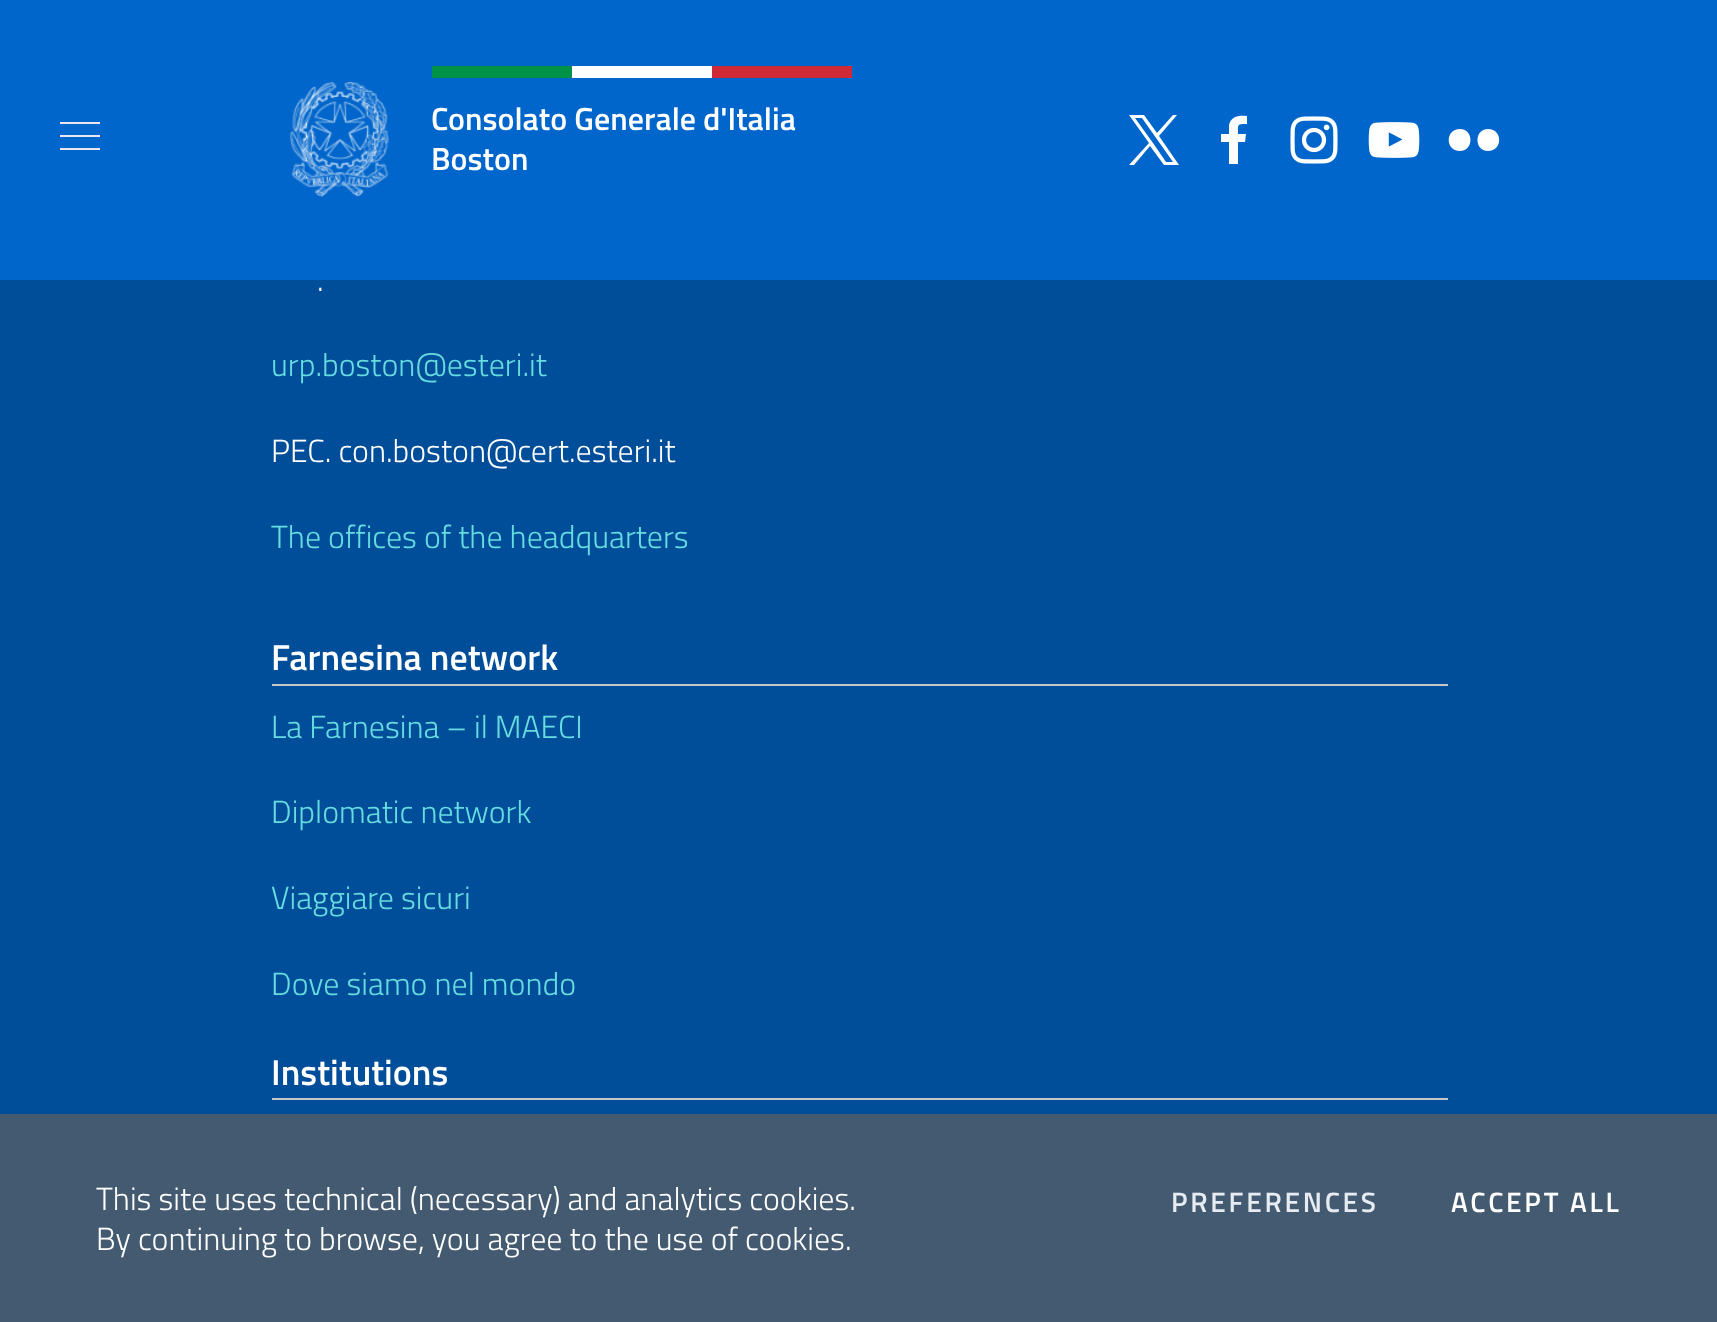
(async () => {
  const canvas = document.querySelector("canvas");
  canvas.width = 1717;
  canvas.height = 1322;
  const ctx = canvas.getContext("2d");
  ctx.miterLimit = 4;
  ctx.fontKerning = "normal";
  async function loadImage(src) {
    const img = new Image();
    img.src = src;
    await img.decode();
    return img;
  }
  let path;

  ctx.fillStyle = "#004d99";
  ctx.fillRect(0, 0, 1717, 1322);
  ctx.fillStyle = "#0066cc";
  ctx.fillRect(0, 0, 1717, 280);
  ctx.drawImage(await loadImage("img/1.png"), 60, 122, 40, 28);
  ctx.drawImage(await loadImage("img/2.png"), 290, 82, 99, 115);
  for (const [x, y, w, h, color] of [
    [432, 66, 140, 12, "#009246"],
    [572, 66, 140, 12, "#ffffff"],
    [712, 66, 140, 12, "#ce2b37"],
  ]) {
    ctx.fillStyle = color;
    ctx.fillRect(x, y, w, h);
  }
  ctx.fillStyle = "#ffffff";
  path = new Path2D("M1159 136L1177 115H1173L1157 133L1144 115H1129L1149 143L1129 165H1134L1150 146L1164 165H1179ZM1153 143L1135 118H1142L1173 162H1166Z");
  ctx.fill(path);
  path = new Path2D("M1247 124C1237 124 1238 124 1238 134H1246L1245 142H1238V164H1229V142H1221V134H1229V125C1231 116 1239 115 1247 116Z");
  ctx.fill(path);
  ctx.drawImage(await loadImage("img/3.png"), 1290, 116, 48, 48);
  ctx.drawImage(await loadImage("img/4.png"), 1368, 122, 52, 36);
  path = new Path2D("M1460 151C1445 151 1445 129 1460 129C1474 129 1474 151 1460 151ZM1488 151C1474 151 1474 129 1488 129C1503 129 1503 151 1488 151Z");
  ctx.fill(path);
  for (const [x, y, w, h, color] of [
    [272, 684, 1176, 2, "#c5c7c9"],
    [272, 1098, 1176, 2, "#c5c7c9"],
    [0, 1114, 1717, 208, "#435a70"],
  ]) {
    ctx.fillStyle = color;
    ctx.fillRect(x, y, w, h);
  }
  ctx.font = "600 32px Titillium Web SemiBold";
  ctx.fillStyle = "#ffffff";
  ctx.fillText("Consolato Generale d'Italia", 431, 130);
  ctx.fillText("Boston", 431, 170);
  ctx.font = "300 32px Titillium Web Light";
  ctx.fillText(".", 317, 291);
  ctx.fillStyle = "#65dde0";
  ctx.fillText("urp.boston@esteri.it", 271, 376);
  ctx.fillStyle = "#ffffff";
  ctx.fillText("PEC. con.boston@cert.esteri.it", 271, 462);
  ctx.fillStyle = "#65dde0";
  ctx.fillText("The offices of the headquarters", 271, 548);
  ctx.font = "600 36px Titillium Web SemiBold";
  ctx.fillStyle = "#ffffff";
  ctx.fillText("Farnesina network", 271, 670);
  ctx.font = "300 32px Titillium Web Light";
  ctx.fillStyle = "#65dde0";
  for (const [text, x, y] of [
    ["La Farnesina – il MAECI", 271, 738],
    ["Diplomatic network", 271, 823],
    ["Viaggiare sicuri", 271, 909],
    ["Dove siamo nel mondo", 271, 995],
  ]) {
    ctx.fillText(text, x, y);
  }
  ctx.font = "600 36px Titillium Web SemiBold";
  ctx.fillStyle = "#ffffff";
  ctx.fillText("Institutions", 271, 1085);
  ctx.font = "300 32px Titillium Web Light";
  ctx.fillText("This site uses technical (necessary) and analytics cookies.", 96, 1210);
  ctx.fillText("By continuing to browse, you agree to the use of cookies.", 96, 1250);
  ctx.letterSpacing = "2.75px";
  ctx.font = "600 28px Titillium Web SemiBold";
  ctx.fillStyle = "#e6ecf2";
  ctx.fillText("PREFERENCES", 1171, 1212);
  ctx.fillStyle = "#ffffff";
  ctx.fillText("ACCEPT ALL", 1451, 1212);
})();
